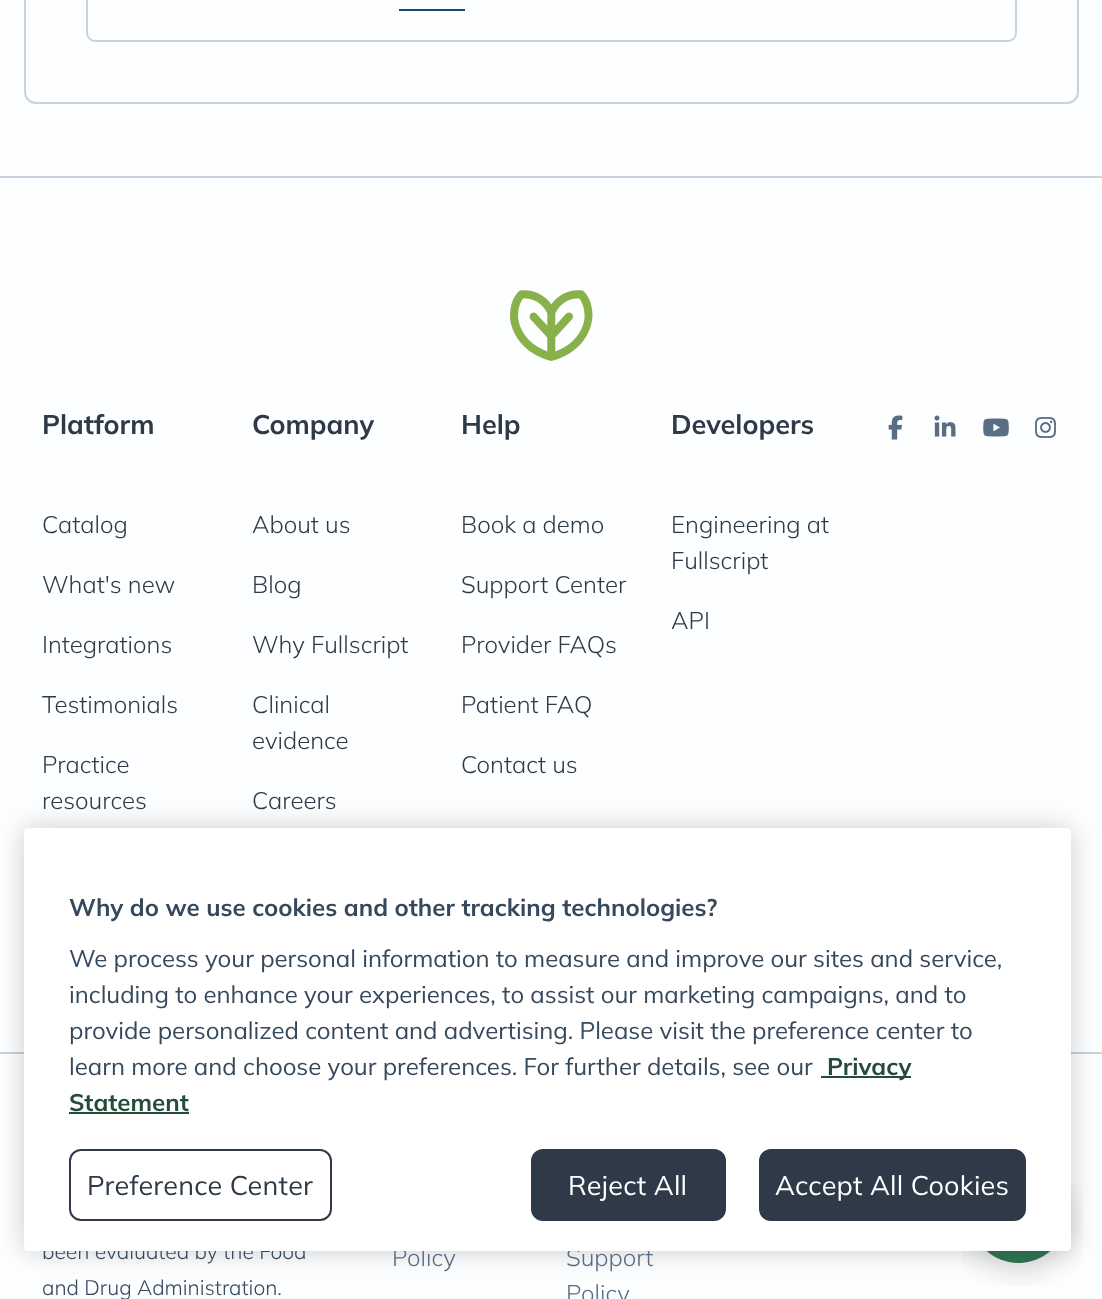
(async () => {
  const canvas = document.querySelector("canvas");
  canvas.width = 1102;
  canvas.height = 1299;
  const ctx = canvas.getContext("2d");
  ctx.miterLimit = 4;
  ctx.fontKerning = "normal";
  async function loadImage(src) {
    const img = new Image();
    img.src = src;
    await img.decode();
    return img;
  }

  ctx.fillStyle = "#fcfeff";
  ctx.fillRect(0, 0, 1102, 1299);
  ctx.beginPath();
  ctx.roundRect(25, -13, 1053, 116, 11);
  ctx.strokeStyle = "#c8d3e0";
  ctx.lineWidth = 2;
  ctx.stroke();
  ctx.beginPath();
  ctx.roundRect(87, -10, 929, 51, 8);
  ctx.stroke();
  ctx.fillStyle = "#194673";
  ctx.fillRect(399, 9, 66, 2);
  ctx.fillStyle = "#c8d3e0";
  ctx.fillRect(0, 176, 1102, 2);
  ctx.drawImage(await loadImage("img/1.png"), 510, 290, 83, 71);
  ctx.drawImage(await loadImage("img/2.png"), 888, 415, 15, 25);
  ctx.drawImage(await loadImage("img/3.png"), 934, 415, 22, 22);
  ctx.drawImage(await loadImage("img/4.png"), 983, 418, 26, 19);
  ctx.drawImage(await loadImage("img/5.png"), 1035, 417, 21, 21);
  ctx.fillRect(0, 1052, 1102, 2);
  ctx.drawImage(await loadImage("img/6.png"), 962, 1184, 121, 102);
  ctx.fillStyle = "rgba(0, 0, 0, 0.2)";
  ctx.filter = "blur(13.5px)";
  ctx.beginPath();
  ctx.roundRect(24, 828, 1047, 423, 4);
  ctx.fill();
  ctx.filter = "none";
  ctx.font = "bold 27px Mulish";
  ctx.fillStyle = "#2e3a47";
  ctx.fillText("Platform", 42, 434);
  ctx.font = "300 24px Mulish";
  for (const [text, x, y] of [
    ["Catalog", 42, 533],
    ["What's new", 42, 593],
    ["Integrations", 42, 653],
    ["Testimonials", 42, 713],
    ["Practice", 42, 773],
    ["resources", 42, 809],
  ]) {
    ctx.fillText(text, x, y);
  }
  ctx.font = "bold 27px Mulish";
  ctx.fillText("Company", 252, 434);
  ctx.font = "300 24px Mulish";
  for (const [text, x, y] of [
    ["About us", 252, 533],
    ["Blog", 252, 593],
    ["Why Fullscript", 252, 653],
    ["Clinical", 252, 713],
    ["evidence", 252, 749],
    ["Careers", 252, 809],
  ]) {
    ctx.fillText(text, x, y);
  }
  ctx.font = "bold 27px Mulish";
  ctx.fillText("Help", 461, 434);
  ctx.font = "300 24px Mulish";
  for (const [text, x, y] of [
    ["Book a demo", 461, 533],
    ["Support Center", 461, 593],
    ["Provider FAQs", 461, 653],
    ["Patient FAQ", 461, 713],
    ["Contact us", 461, 773],
  ]) {
    ctx.fillText(text, x, y);
  }
  ctx.font = "bold 27px Mulish";
  ctx.fillText("Developers", 671, 434);
  ctx.font = "300 24px Mulish";
  for (const [text, x, y] of [
    ["Engineering at", 671, 533],
    ["Fullscript", 671, 569],
    ["API", 671, 629],
  ]) {
    ctx.fillText(text, x, y);
  }
  ctx.font = "300 21px Mulish";
  ctx.fillStyle = "#36485c";
  ctx.fillText("been evaluated by the Food", 42, 1259);
  ctx.fillText("and Drug Administration.", 42, 1295);
  ctx.font = "300 24px Mulish";
  ctx.fillStyle = "#596d84";
  for (const [text, x, y] of [
    ["Policy", 392, 1266],
    ["Support", 566, 1266],
    ["Policy", 566, 1302],
  ]) {
    ctx.fillText(text, x, y);
  }
  ctx.fillStyle = "#ffffff";
  ctx.beginPath();
  ctx.roundRect(24, 828, 1047, 423, 4);
  ctx.fill();
  ctx.font = "bold 24px Mulish";
  ctx.fillStyle = "#36485c";
  ctx.fillText("Why do we use cookies and other tracking technologies?", 69, 916);
  ctx.font = "24px Mulish";
  for (const [text, x, y] of [
    ["We process your personal information to measure and improve our sites and service,", 69, 967],
    ["including to enhance your experiences, to assist our marketing campaigns, and to", 69, 1003],
    ["provide personalized content and advertising. Please visit the preference center to", 69, 1039],
    ["learn more and choose your preferences. For further details, see our", 69, 1075],
  ]) {
    ctx.fillText(text, x, y);
  }
  ctx.fillStyle = "#244c38";
  ctx.fillRect(821, 1076, 90, 2);
  ctx.font = "bold 24px Mulish";
  ctx.fillText("Privacy", 827, 1075);
  ctx.fillText("Statement", 69, 1111);
  ctx.fillRect(69, 1112, 120, 2);
  ctx.beginPath();
  ctx.roundRect(70, 1150, 261, 70, 11);
  ctx.strokeStyle = "#2e3a47";
  ctx.stroke();
  ctx.letterSpacing = "0.25px";
  ctx.font = "27px Mulish";
  ctx.fillStyle = "#2e3a47";
  ctx.fillText("Preference Center", 87, 1195);
  ctx.beginPath();
  ctx.roundRect(532, 1150, 193, 70, 11);
  ctx.fill();
  ctx.stroke();
  ctx.fillStyle = "#ffffff";
  ctx.fillText("Reject All", 568, 1195);
  ctx.fillStyle = "#2e3a47";
  ctx.beginPath();
  ctx.roundRect(760, 1150, 265, 70, 11);
  ctx.fill();
  ctx.stroke();
  ctx.fillStyle = "#ffffff";
  ctx.fillText("Accept All Cookies", 775, 1195);
})();
